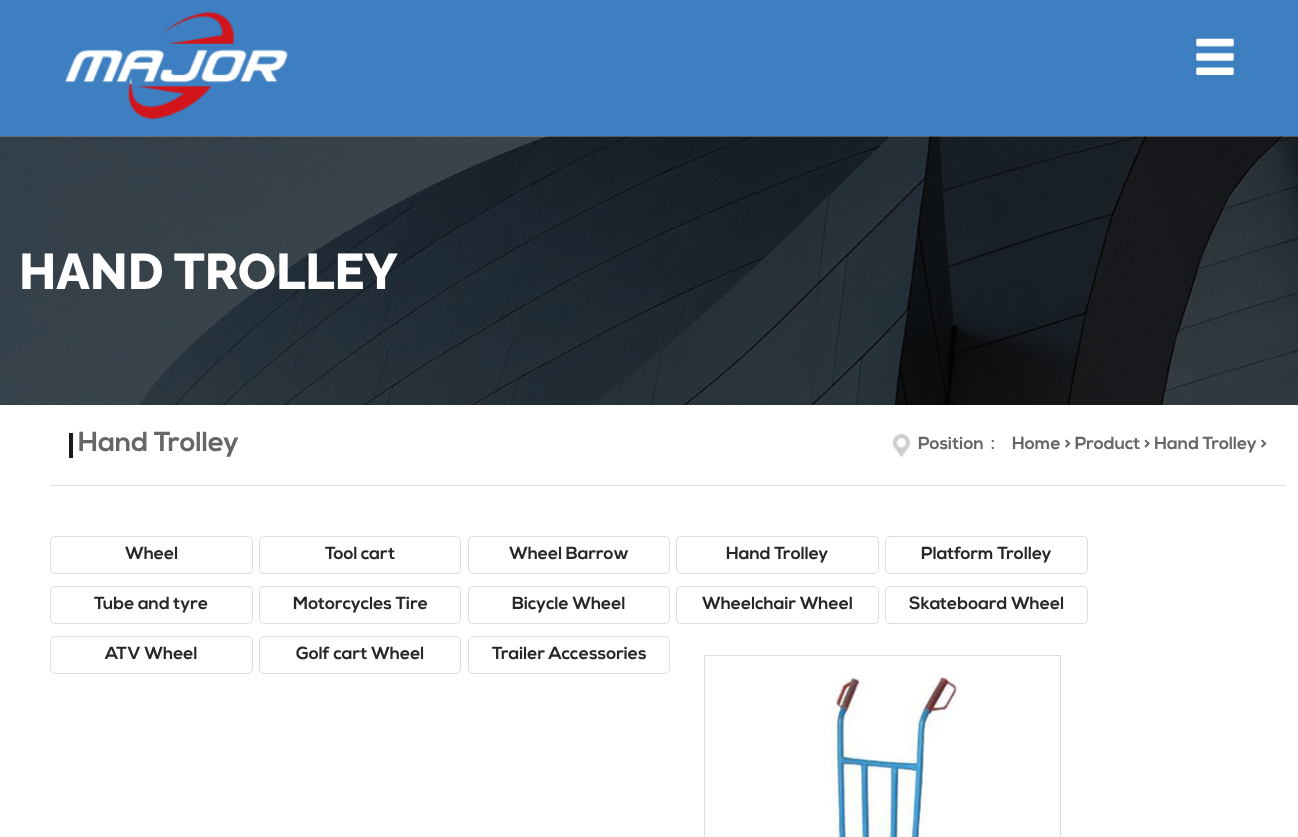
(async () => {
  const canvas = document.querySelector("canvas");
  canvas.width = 1298;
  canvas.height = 837;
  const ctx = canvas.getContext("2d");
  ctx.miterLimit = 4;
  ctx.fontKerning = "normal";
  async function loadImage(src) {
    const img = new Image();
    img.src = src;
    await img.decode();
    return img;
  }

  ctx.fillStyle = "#ffffff";
  ctx.fillRect(0, 0, 1298, 837);
  ctx.fillStyle = "#3d7fc1";
  ctx.fillRect(0, 0, 1298, 136);
  ctx.drawImage(await loadImage("img/1.png"), 65, 12, 223, 107);
  ctx.drawImage(await loadImage("img/2.png"), 1196, 38, 38, 37);
  ctx.drawImage(await loadImage("img/3.png"), 0, 136, 1298, 269);
  ctx.fillStyle = "#dddddd";
  ctx.fillRect(50, 485, 1236, 1);
  ctx.fillStyle = "#1a1a1a";
  ctx.fillRect(69, 433, 4, 25);
  ctx.drawImage(await loadImage("img/4.png"), 892, 433, 19, 25);
  ctx.beginPath();
  ctx.roundRect(50.5, 536.5, 202, 37, 4.5);
  ctx.strokeStyle = "#dddddd";
  ctx.stroke();
  ctx.beginPath();
  ctx.roundRect(259.5, 536.5, 201, 37, 4.5);
  ctx.stroke();
  ctx.beginPath();
  ctx.roundRect(468.5, 536.5, 201, 37, 4.5);
  ctx.stroke();
  ctx.beginPath();
  ctx.roundRect(676.5, 536.5, 202, 37, 4.5);
  ctx.stroke();
  ctx.beginPath();
  ctx.roundRect(885.5, 536.5, 202, 37, 4.5);
  ctx.stroke();
  ctx.beginPath();
  ctx.roundRect(50.5, 586.5, 202, 37, 4.5);
  ctx.stroke();
  ctx.beginPath();
  ctx.roundRect(259.5, 586.5, 201, 37, 4.5);
  ctx.stroke();
  ctx.beginPath();
  ctx.roundRect(468.5, 586.5, 201, 37, 4.5);
  ctx.stroke();
  ctx.beginPath();
  ctx.roundRect(676.5, 586.5, 202, 37, 4.5);
  ctx.stroke();
  ctx.beginPath();
  ctx.roundRect(885.5, 586.5, 202, 37, 4.5);
  ctx.stroke();
  ctx.beginPath();
  ctx.roundRect(50.5, 636.5, 202, 37, 4.5);
  ctx.stroke();
  ctx.beginPath();
  ctx.roundRect(259.5, 636.5, 201, 37, 4.5);
  ctx.stroke();
  ctx.beginPath();
  ctx.roundRect(468.5, 636.5, 201, 37, 4.5);
  ctx.stroke();
  ctx.strokeRect(704.5, 655.5, 356, 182);
  ctx.drawImage(await loadImage("img/5.png"), 830, 676, 129, 161);
  ctx.font = "800 50px Raleway";
  ctx.fillStyle = "#ffffff";
  ctx.fillText("HAND TROLLEY", 19, 289);
  ctx.font = "bold 27.5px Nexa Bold";
  ctx.fillStyle = "#666666";
  ctx.fillText("Hand Trolley", 78, 451);
  ctx.font = "bold 17.5px Nexa Bold";
  ctx.fillText("Position", 918, 449);
  ctx.font = "500 17.5px WenQuanYi Zen Hei";
  ctx.fillText("：", 984, 449);
  ctx.font = "bold 17.5px Nexa Bold";
  ctx.fillText("Home > Product > Hand Trolley >", 1012, 449);
  ctx.fillStyle = "#272727";
  for (const [text, x, y] of [
    ["Wheel", 125, 559],
    ["Tool cart", 325, 559],
    ["Wheel Barrow", 509, 559],
    ["Hand Trolley", 726, 559],
    ["Platform Trolley", 921, 559],
    ["Tube and tyre", 94, 609],
    ["Motorcycles Tire", 293, 609],
    ["Bicycle Wheel", 512, 609],
    ["Wheelchair Wheel", 702, 609],
    ["Skateboard Wheel", 909, 609],
    ["ATV Wheel", 105, 659],
    ["Golf cart Wheel", 296, 659],
    ["Trailer Accessories", 492, 659],
  ]) {
    ctx.fillText(text, x, y);
  }
})();
